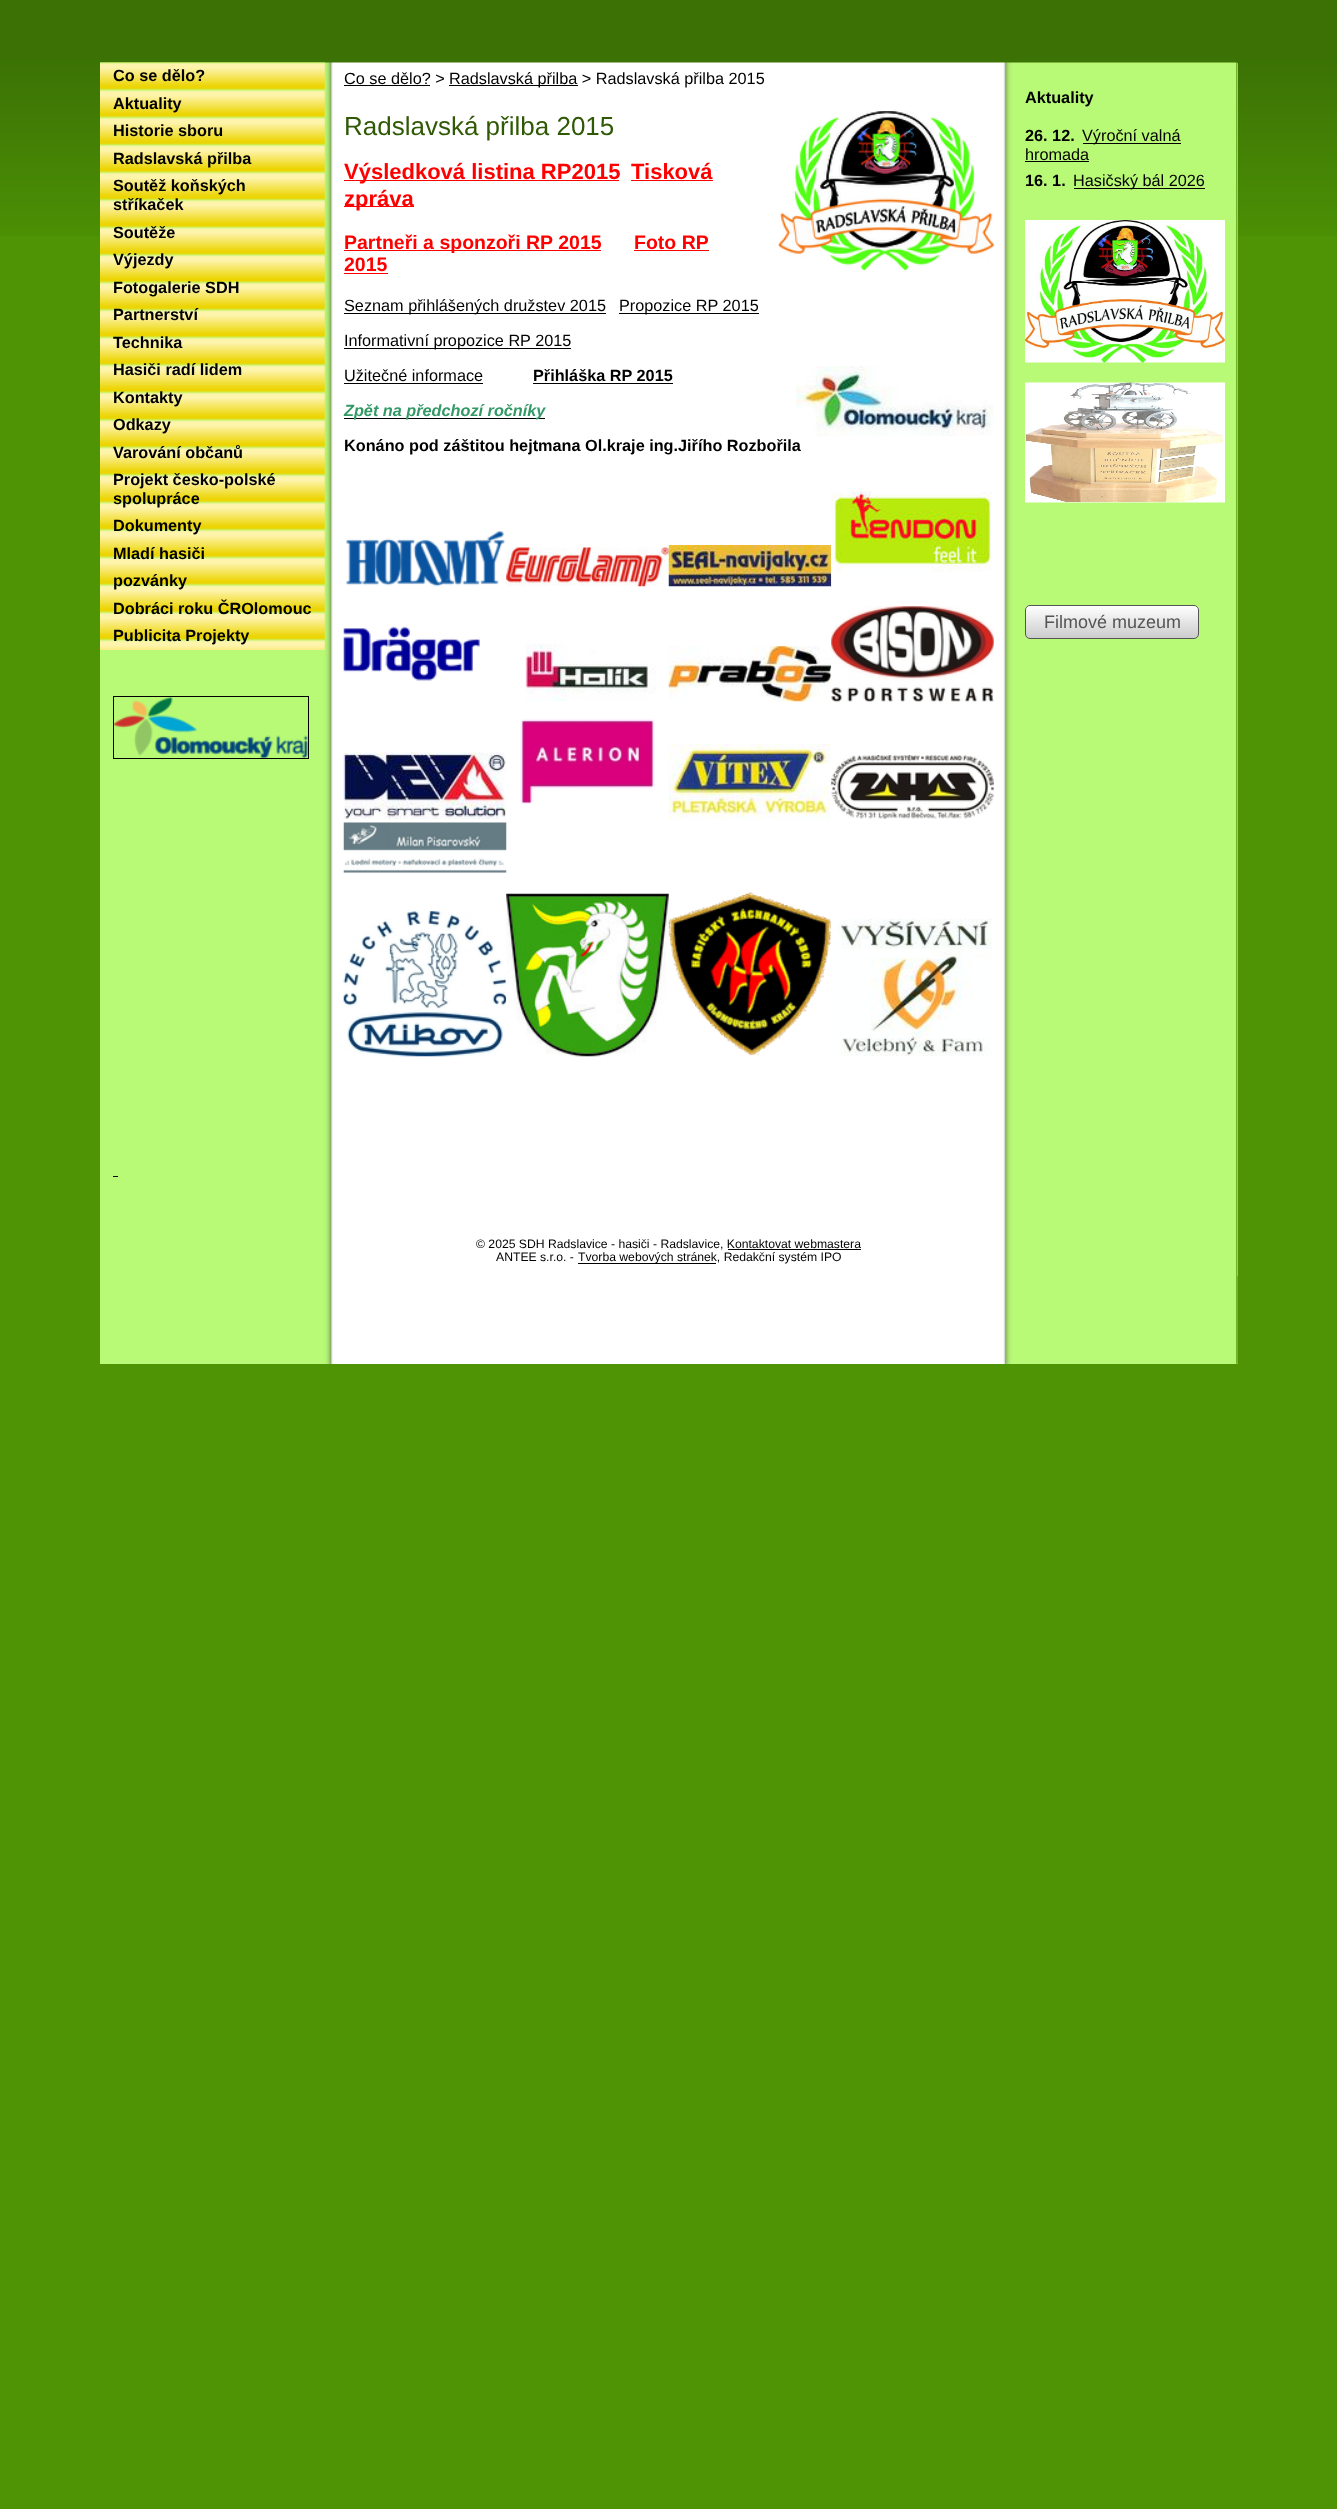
(async () => {
  const canvas = document.querySelector("canvas");
  canvas.width = 1337;
  canvas.height = 2509;
  const ctx = canvas.getContext("2d");
  ctx.miterLimit = 4;
  ctx.fontKerning = "normal";
  async function loadImage(src) {
    const img = new Image();
    img.src = src;
    await img.decode();
    return img;
  }
  let gradient;

  ctx.fillStyle = "#4e9405";
  ctx.fillRect(0, 0, 1337, 2509);
  ctx.drawImage(await loadImage("img/1.png"), 0, 0, 1337, 236);
  ctx.fillStyle = "#eeffee";
  ctx.fillRect(100, 63, 1138, 1301);
  ctx.drawImage(await loadImage("img/2.png"), 100, 62, 1138, 1302);
  ctx.drawImage(await loadImage("img/3.png"), 100, 62, 225, 588);
  ctx.strokeStyle = "#000000";
  ctx.strokeRect(113.5, 696.5, 195, 62);
  ctx.drawImage(await loadImage("img/4.png"), 113, 697, 195, 61);
  for (const [x, y, w, h, color] of [
    [113, 1176, 5, 1, "#000000"],
    [344, 85, 86, 1, "#000000"],
    [449, 85, 129, 1, "#000000"],
  ]) {
    ctx.fillStyle = color;
    ctx.fillRect(x, y, w, h);
  }
  ctx.drawImage(await loadImage("img/5.png"), 778, 111, 216, 159);
  for (const [x, y, w, h, color] of [
    [344, 180, 275, 1, "#ff0000"],
    [631, 180, 82, 1, "#ff0000"],
    [344, 206, 70, 1, "#ff0000"],
    [344, 250, 257, 1, "#ff0000"],
    [634, 250, 75, 1, "#ff0000"],
    [344, 273, 44, 1, "#ff0000"],
    [344, 313, 262, 1, "#000000"],
    [619, 313, 140, 1, "#000000"],
    [344, 348, 227, 1, "#000000"],
    [344, 383, 139, 1, "#000000"],
    [533, 383, 140, 1, "#000000"],
  ]) {
    ctx.fillStyle = color;
    ctx.fillRect(x, y, w, h);
  }
  ctx.drawImage(await loadImage("img/6.png"), 796, 366, 198, 70);
  ctx.fillRect(344, 418, 201, 1);
  ctx.drawImage(await loadImage("img/7.png"), 346, 530, 160, 57);
  ctx.drawImage(await loadImage("img/8.png"), 506, 547, 163, 40);
  ctx.drawImage(await loadImage("img/9.png"), 668, 545, 164, 42);
  ctx.drawImage(await loadImage("img/10.png"), 831, 491, 161, 95);
  ctx.drawImage(await loadImage("img/11.png"), 343, 626, 137, 55);
  ctx.drawImage(await loadImage("img/12.png"), 525, 643, 131, 58);
  ctx.drawImage(await loadImage("img/13.png"), 668, 646, 164, 56);
  ctx.drawImage(await loadImage("img/14.png"), 831, 606, 163, 96);
  ctx.drawImage(await loadImage("img/15.png"), 343, 752, 163, 67);
  ctx.drawImage(await loadImage("img/16.png"), 520, 719, 135, 85);
  ctx.drawImage(await loadImage("img/17.png"), 668, 743, 163, 76);
  ctx.drawImage(await loadImage("img/18.png"), 831, 755, 163, 64);
  ctx.drawImage(await loadImage("img/19.png"), 343, 822, 164, 51);
  ctx.drawImage(await loadImage("img/20.png"), 343, 911, 164, 146);
  ctx.drawImage(await loadImage("img/21.png"), 506, 893, 163, 164);
  ctx.drawImage(await loadImage("img/22.png"), 668, 892, 164, 164);
  ctx.drawImage(await loadImage("img/23.png"), 831, 918, 161, 139);
  for (const [x, y, w, h, color] of [
    [1083, 143, 98, 1, "#000000"],
    [1025, 161, 64, 1, "#000000"],
    [1074, 188, 131, 1, "#000000"],
  ]) {
    ctx.fillStyle = color;
    ctx.fillRect(x, y, w, h);
  }
  ctx.drawImage(await loadImage("img/24.png"), 1025, 220, 200, 143);
  ctx.drawImage(await loadImage("img/25.png"), 1025, 382, 200, 121);
  ctx.save();
  ctx.beginPath();
  ctx.roundRect(1025, 605, 174, 34, 5);
  ctx.clip();
  gradient = ctx.createLinearGradient(1026, 606, 1026, 638);
  gradient.addColorStop(0, "#ffffff");
  gradient.addColorStop(1, "#cccccc");
  ctx.fillStyle = gradient;
  ctx.fillRect(1025, 606, 174, 32);
  ctx.restore();
  ctx.beginPath();
  ctx.roundRect(1025.5, 605.5, 173, 33, 4.5);
  ctx.strokeStyle = "#555555";
  ctx.stroke();
  ctx.fillRect(728, 1249, 133, 1);
  ctx.fillRect(578, 1263, 138, 1);
  ctx.drawImage(await loadImage("img/26.png"), 100, 1276, 1138, 88);
  ctx.font = "bold 16.25px Liberation Sans";
  for (const [text, x, y] of [
    ["Co se dělo?", 113, 81],
    ["Aktuality", 113, 109],
    ["Historie sboru", 113, 136],
    ["Radslavská přilba", 113, 164],
    ["Soutěž koňských", 113, 191],
    ["stříkaček", 113, 210],
    ["Soutěže", 113, 238],
    ["Výjezdy", 113, 265],
    ["Fotogalerie SDH", 113, 293],
    ["Partnerství", 113, 320],
    ["Technika", 113, 348],
    ["Hasiči radí lidem", 113, 375],
    ["Kontakty", 113, 403],
    ["Odkazy", 113, 430],
    ["Varování občanů", 113, 458],
    ["Projekt česko-polské", 113, 485],
    ["spolupráce", 113, 504],
    ["Dokumenty", 113, 531],
    ["Mladí hasiči", 113, 559],
    ["pozvánky", 113, 586],
    ["Dobráci roku ČROlomouc", 113, 614],
    ["Publicita Projekty", 113, 641],
  ]) {
    ctx.fillText(text, x, y);
  }
  ctx.font = "16.25px Liberation Sans";
  ctx.fillText("Co se dělo? >", 344, 84);
  ctx.fillText("Radslavská přilba > Radslavská přilba 2015", 449, 84);
  ctx.font = "26px Liberation Sans";
  ctx.fillStyle = "#2f5904";
  ctx.fillText("Radslavská přilba 2015", 344, 135);
  ctx.font = "bold 22px Liberation Sans";
  ctx.fillStyle = "#ff0000";
  for (const [text, x, y] of [
    ["Výsledková listina RP2015", 344, 179],
    ["Tisková", 631, 179],
    ["zpráva", 344, 206],
  ]) {
    ctx.fillText(text, x, y);
  }
  ctx.font = "bold 19.5px Liberation Sans";
  for (const [text, x, y] of [
    ["Partneři a sponzoři RP 2015", 344, 249],
    ["Foto RP", 634, 249],
    ["2015", 344, 271],
  ]) {
    ctx.fillText(text, x, y);
  }
  ctx.font = "16.25px Liberation Sans";
  ctx.fillStyle = "#000000";
  for (const [text, x, y] of [
    ["Seznam přihlášených družstev 2015", 344, 311],
    ["Propozice RP 2015", 619, 311],
    ["Informativní propozice RP 2015", 344, 346],
    ["Užitečné informace", 344, 381],
  ]) {
    ctx.fillText(text, x, y);
  }
  ctx.font = "bold 16.25px Liberation Sans";
  ctx.fillText("Přihláška RP 2015", 533, 381);
  ctx.font = "italic bold 16.25px Liberation Sans";
  ctx.fillStyle = "#339966";
  ctx.fillText("Zpět na předchozí ročníky", 344, 416);
  ctx.font = "bold 16.25px Liberation Sans";
  ctx.fillStyle = "#000000";
  for (const [text, x, y] of [
    ["Konáno pod záštitou hejtmana Ol.kraje ing.Jiřího Rozbořila", 344, 451],
    ["Aktuality", 1025, 103],
    ["26. 12.", 1025, 141],
  ]) {
    ctx.fillText(text, x, y);
  }
  ctx.font = "16.25px Liberation Sans";
  ctx.fillText("Výroční valná", 1082, 141);
  ctx.fillText("hromada", 1025, 160);
  ctx.font = "bold 16.25px Liberation Sans";
  ctx.fillText("16. 1.", 1025, 186);
  ctx.font = "16.25px Liberation Sans";
  ctx.fillText("Hasičský bál 2026", 1073, 186);
  ctx.font = "18px Liberation Sans";
  ctx.fillStyle = "#555555";
  ctx.fillText("Filmové muzeum", 1044, 628);
  ctx.font = "12.2px Liberation Sans";
  ctx.fillStyle = "#000000";
  for (const [text, x, y] of [
    ["© 2025 SDH Radslavice - hasiči - Radslavice, Kontaktovat webmastera", 476, 1248],
    ["ANTEE s.r.o. -", 496, 1261],
    ["Tvorba webových stránek, Redakční systém IPO", 578, 1261],
  ]) {
    ctx.fillText(text, x, y);
  }
})();
